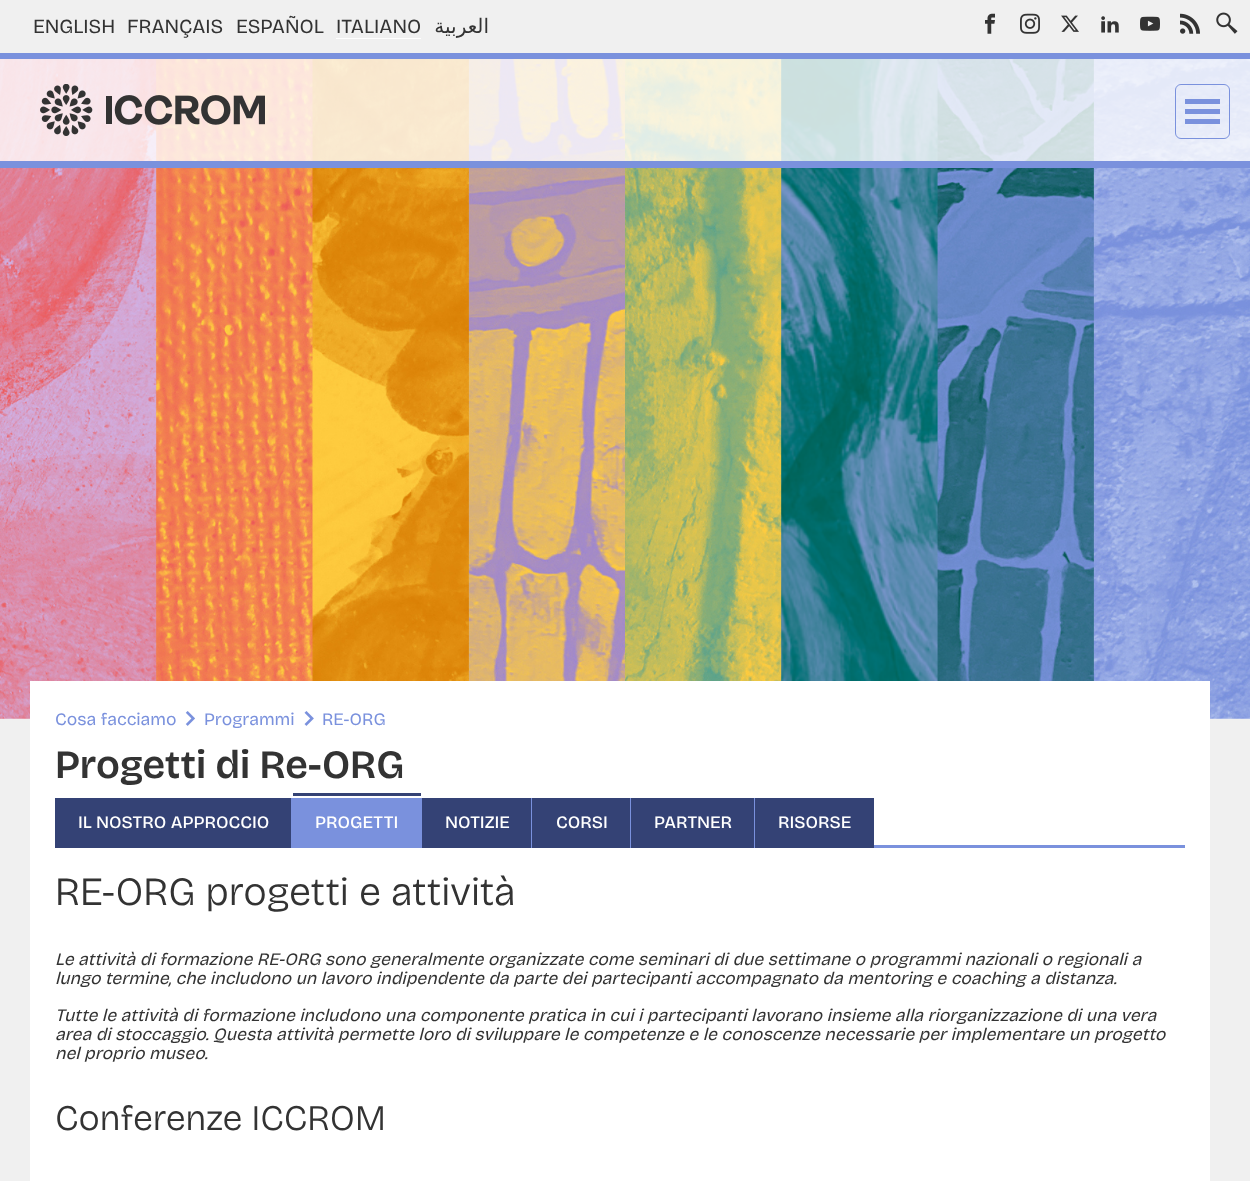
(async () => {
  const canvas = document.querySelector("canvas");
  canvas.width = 1250;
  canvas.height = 1181;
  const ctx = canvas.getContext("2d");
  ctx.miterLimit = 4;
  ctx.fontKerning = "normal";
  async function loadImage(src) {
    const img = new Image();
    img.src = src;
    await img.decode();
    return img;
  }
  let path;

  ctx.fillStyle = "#f0f0f0";
  ctx.fillRect(0, 0, 1250, 1181);
  ctx.fillStyle = "#7a91dd";
  ctx.fillRect(0, 53, 1250, 6);
  ctx.fillStyle = "#ffffff";
  ctx.fillRect(336, 38, 85, 1);
  ctx.drawImage(await loadImage("img/1.png"), 985, 13, 10, 21);
  ctx.drawImage(await loadImage("img/2.png"), 1020, 13, 20, 21);
  ctx.drawImage(await loadImage("img/3.png"), 1061, 15, 18, 17);
  ctx.drawImage(await loadImage("img/4.png"), 1101, 16, 18, 17);
  ctx.drawImage(await loadImage("img/5.png"), 1140, 16, 20, 15);
  ctx.drawImage(await loadImage("img/6.png"), 1180, 13, 20, 21);
  ctx.drawImage(await loadImage("img/7.png"), 1216, 12, 22, 22);
  ctx.drawImage(await loadImage("img/9.png"), 0, 59, 1250, 660);
  ctx.fillStyle = "rgba(255, 255, 255, 0.8)";
  ctx.fillRect(0, 59, 1250, 102);
  ctx.fillStyle = "#7a91dd";
  ctx.fillRect(0, 161, 1250, 7);
  ctx.drawImage(await loadImage("img/8.png"), 40, 84, 225, 52);
  ctx.fillStyle = "#ffffff";
  ctx.fillRect(30, 681, 1180, 500);
  ctx.fillStyle = "#7a91dd";
  ctx.fillRect(874, 845, 311, 3);
  ctx.drawImage(await loadImage("img/10.png"), 185, 711, 10, 15);
  ctx.drawImage(await loadImage("img/11.png"), 304, 711, 10, 15);
  for (const [x, y, w, h, color] of [
    [55, 798, 236, 50, "#344275"],
    [291, 798, 131, 50, "#7a91dd"],
    [293, 793, 128, 3, "#344275"],
    [422, 798, 109, 50, "#344275"],
    [532, 798, 98, 50, "#344275"],
    [531, 798, 1, 50, "#7a91dd"],
    [631, 798, 123, 50, "#344275"],
    [630, 798, 1, 50, "#7a91dd"],
    [755, 798, 119, 50, "#344275"],
    [754, 798, 1, 50, "#7a91dd"],
  ]) {
    ctx.fillStyle = color;
    ctx.fillRect(x, y, w, h);
  }
  ctx.beginPath();
  ctx.roundRect(1175.5, 84.5, 54, 54, 5.5);
  ctx.strokeStyle = "#7a91dd";
  ctx.stroke();
  path = new Path2D("M1185 99H1220V104H1185ZM1185 109H1220V114H1185ZM1185 119H1220V124H1185Z");
  ctx.fill(path);
  ctx.font = "20px 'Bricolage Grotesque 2'";
  ctx.fillStyle = "#333333";
  for (const [text, x, y] of [
    ["ENGLISH", 33, 33],
    ["FRANÇAIS", 127, 33],
    ["ESPAÑOL", 236, 33],
    ["ITALIANO", 336, 33],
  ]) {
    ctx.fillText(text, x, y);
  }
  ctx.direction = "rtl";
  ctx.font = "20px DejaVu Sans";
  ctx.fillText("العربية", 489, 33);
  ctx.direction = "ltr";
  ctx.font = "17.5px Bricolage Grotesque";
  ctx.fillStyle = "#7a91dd";
  for (const [text, x, y] of [
    ["Cosa facciamo", 55, 725],
    ["Programmi", 204, 725],
    ["RE-ORG", 322, 725],
  ]) {
    ctx.fillText(text, x, y);
  }
  ctx.font = "600 40px Bricolage Grotesque";
  ctx.fillStyle = "#333333";
  ctx.fillText("Progetti di Re-ORG", 55, 778);
  ctx.font = "500 17.5px Bricolage Grotesque";
  ctx.fillStyle = "#ffffff";
  for (const [text, x, y] of [
    ["IL NOSTRO APPROCCIO", 78, 828],
    ["PROGETTI", 315, 828],
    ["NOTIZIE", 445, 828],
    ["CORSI", 556, 828],
    ["PARTNER", 654, 828],
    ["RISORSE", 778, 828],
  ]) {
    ctx.fillText(text, x, y);
  }
  ctx.font = "300 40px Bricolage Grotesque";
  ctx.fillStyle = "#333333";
  ctx.fillText("RE-ORG progetti e attività", 55, 905);
  ctx.font = "italic 17.5px Bricolage Grotesque";
  for (const [text, x, y] of [
    ["Le attività di formazione RE-ORG sono generalmente organizzate come seminari di due settimane o programmi nazionali o regionali a", 55, 965],
    ["lungo termine, che includono un lavoro indipendente da parte dei partecipanti accompagnato da mentoring e coaching a distanza.", 55, 984],
    ["Tutte le attività di formazione includono una componente pratica in cui i partecipanti lavorano insieme alla riorganizzazione di una vera", 55, 1021],
    ["area di stoccaggio. Questa attività permette loro di sviluppare le competenze e le conoscenze necessarie per implementare un progetto", 55, 1040],
    ["nel proprio museo.", 55, 1059],
  ]) {
    ctx.fillText(text, x, y);
  }
  ctx.font = "300 36px 'Bricolage Grotesque 2'";
  ctx.fillText("Conferenze ICCROM", 55, 1130);
})();
